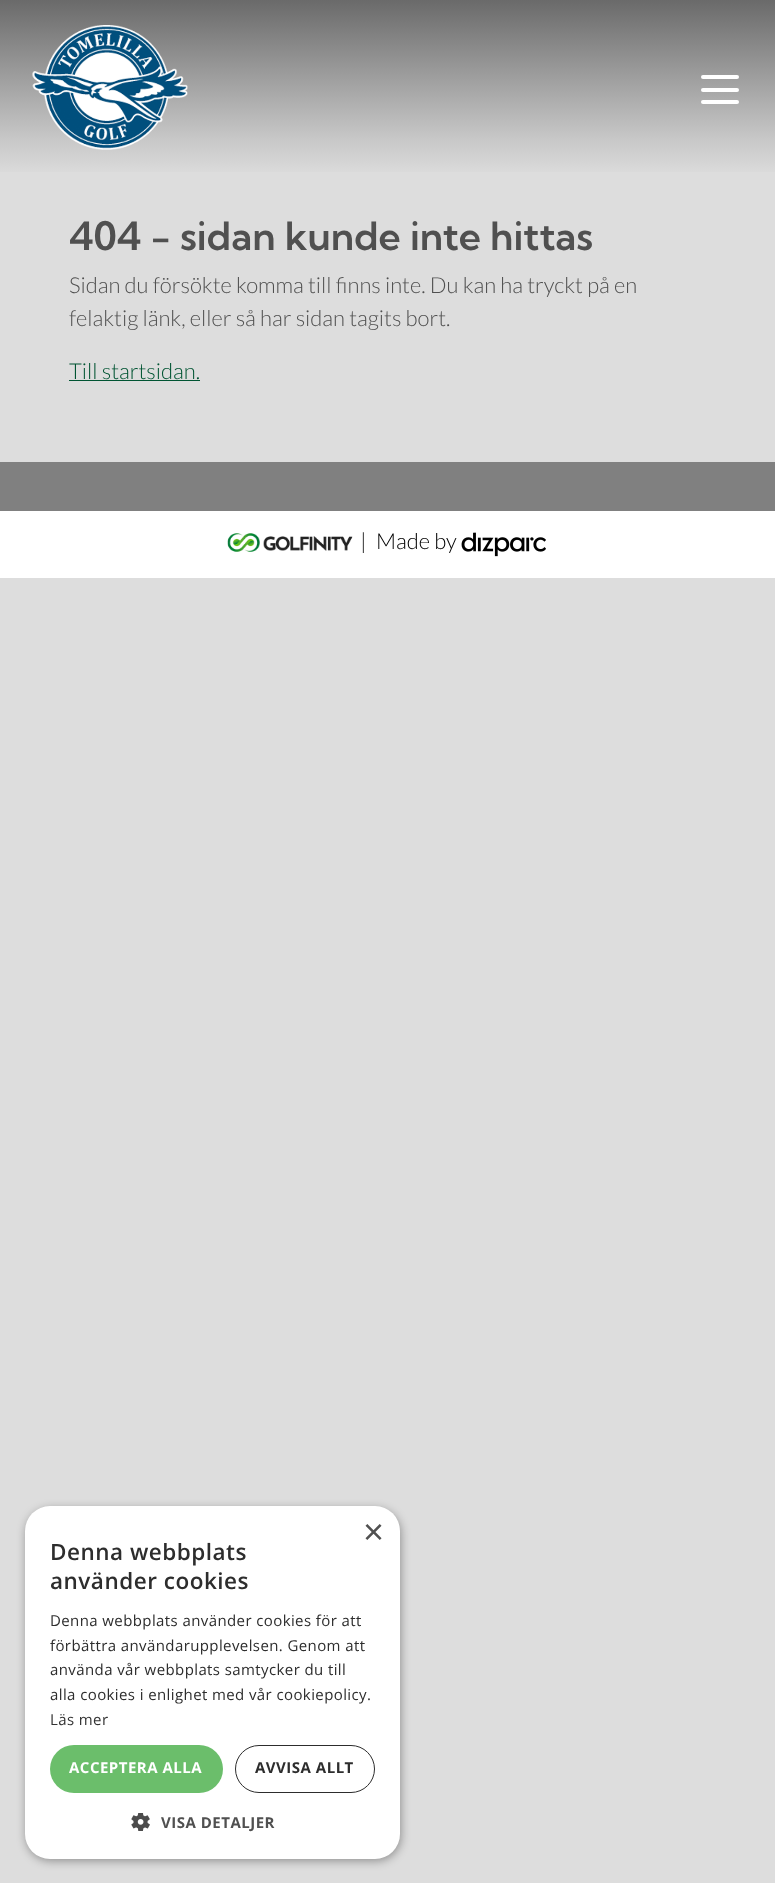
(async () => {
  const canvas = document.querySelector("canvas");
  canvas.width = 775;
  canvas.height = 1883;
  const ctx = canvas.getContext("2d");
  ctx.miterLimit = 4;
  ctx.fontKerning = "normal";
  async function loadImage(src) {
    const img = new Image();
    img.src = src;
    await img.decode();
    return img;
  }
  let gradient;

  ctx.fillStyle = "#dddddd";
  ctx.fillRect(0, 0, 775, 1883);
  gradient = ctx.createLinearGradient(388, 0, 388, 175);
  gradient.addColorStop(0, "#6a6a6a");
  gradient.addColorStop(0.79, "#c7c7c7");
  gradient.addColorStop(1, "#dcdcdc");
  ctx.fillStyle = gradient;
  ctx.fillRect(0, 0, 775, 172);
  ctx.drawImage(await loadImage("img/1.png"), 32, 25, 156, 125);
  ctx.fillStyle = "#ffffff";
  ctx.beginPath();
  ctx.roundRect(701, 75, 38, 4, 2);
  ctx.fill();
  ctx.beginPath();
  ctx.roundRect(701, 88, 38, 4, 2);
  ctx.fill();
  ctx.beginPath();
  ctx.roundRect(701, 100, 38, 4, 2);
  ctx.fill();
  for (const [x, y, w, h, color] of [
    [69, 380, 131, 1, "#005432"],
    [0, 462, 775, 49, "#808080"],
    [0, 511, 775, 67, "#ffffff"],
  ]) {
    ctx.fillStyle = color;
    ctx.fillRect(x, y, w, h);
  }
  ctx.drawImage(await loadImage("img/2.png"), 227, 533, 126, 19);
  ctx.drawImage(await loadImage("img/3.png"), 461, 532, 85, 25);
  ctx.fillStyle = "rgba(0, 0, 0, 0.35)";
  ctx.filter = "blur(5px)";
  ctx.beginPath();
  ctx.roundRect(26, 1509, 375, 352, 25);
  ctx.fill();
  ctx.filter = "none";
  ctx.fillStyle = "#ffffff";
  ctx.beginPath();
  ctx.roundRect(25, 1506, 375, 353, 25);
  ctx.fill();
  ctx.fillStyle = "#6bbe6b";
  ctx.beginPath();
  ctx.roundRect(50, 1745, 173, 48, 24);
  ctx.fill();
  ctx.beginPath();
  ctx.roundRect(235.5, 1745.5, 139, 47, 23.5);
  ctx.strokeStyle = "#2d2d2d";
  ctx.stroke();
  ctx.drawImage(await loadImage("img/4.png"), 131, 1813, 19, 18);
  ctx.font = "600 39.1px Kumbh Sans";
  ctx.fillStyle = "#505050";
  ctx.fillText("404 - sidan kunde inte hittas", 69, 250);
  ctx.font = "300 22px Lato";
  ctx.fillText("Sidan du försökte komma till finns inte. Du kan ha tryckt på en", 69, 293);
  ctx.fillText("felaktig länk, eller så har sidan tagits bort.", 69, 326);
  ctx.fillStyle = "#005432";
  ctx.fillText("Till startsidan.", 69, 379);
  ctx.fillStyle = "#000000";
  ctx.fillText("|", 360, 549);
  ctx.fillText("Made by", 376, 549);
  ctx.font = "36px Liberation Sans";
  ctx.fillStyle = "#505050";
  ctx.fillText("×", 363, 1544);
  ctx.letterSpacing = "0.5px";
  ctx.font = "600 22.5px Open Sans";
  ctx.fillStyle = "#2d2d2d";
  ctx.fillText("Denna webbplats", 50, 1560);
  ctx.fillText("använder cookies", 50, 1589);
  ctx.letterSpacing = "0.4px";
  ctx.font = "15px Open Sans";
  for (const [text, x, y] of [
    ["Denna webbplats använder cookies för att", 50, 1626],
    ["förbättra användarupplevelsen. Genom att", 50, 1651],
    ["använda vår webbplats samtycker du till", 50, 1675],
    ["alla cookies i enlighet med vår cookiepolicy.", 50, 1700],
  ]) {
    ctx.fillText(text, x, y);
  }
  ctx.fillStyle = "#333333";
  ctx.fillText("Läs mer", 50, 1725);
  ctx.letterSpacing = "0.5px";
  ctx.font = "bold 15px Open Sans";
  ctx.fillStyle = "#ffffff";
  ctx.fillText("ACCEPTERA ALLA", 69, 1773);
  ctx.fillStyle = "#2d2d2d";
  ctx.fillText("AVVISA ALLT", 255, 1773);
  ctx.fillStyle = "#505050";
  ctx.fillText("VISA DETALJER", 161, 1828);
})();
